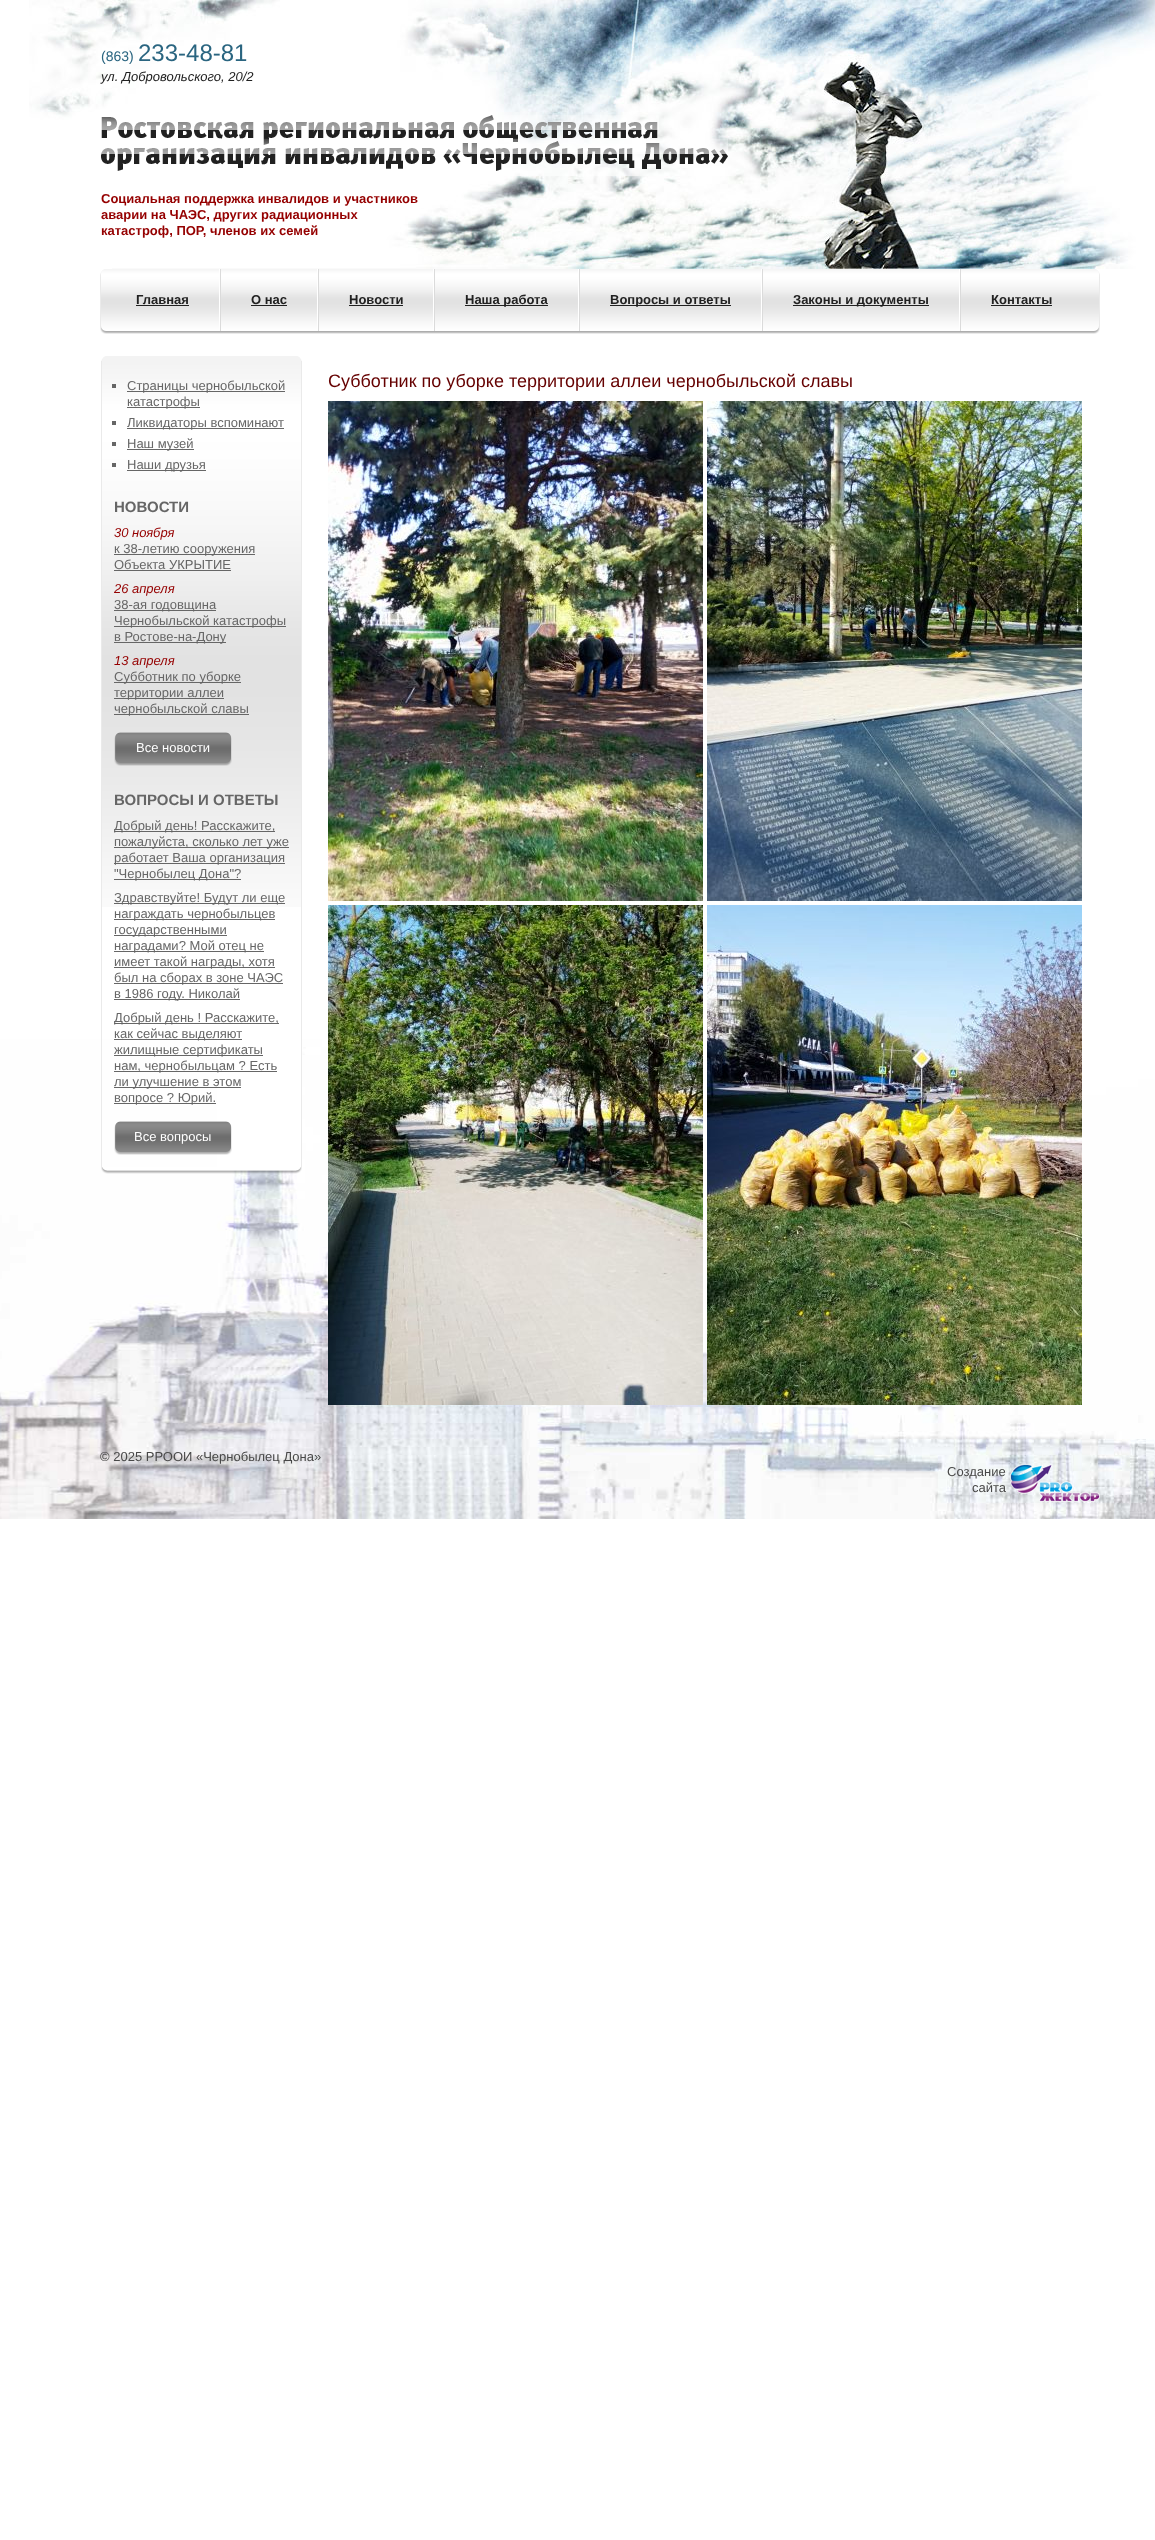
(async () => {
  const canvas = document.querySelector("canvas");
  canvas.width = 1155;
  canvas.height = 2540;
  const ctx = canvas.getContext("2d");
  ctx.miterLimit = 4;
  ctx.fontKerning = "normal";
  async function loadImage(src) {
    const img = new Image();
    img.src = src;
    await img.decode();
    return img;
  }

  ctx.fillStyle = "#ffffff";
  ctx.fillRect(0, 0, 1155, 2540);
  ctx.drawImage(await loadImage("img/1.png"), 0, 1039, 1155, 480);
  ctx.drawImage(await loadImage("img/2.png"), 29, 0, 1126, 269);
  ctx.drawImage(await loadImage("img/3.png"), 101, 115, 627, 56);
  ctx.drawImage(await loadImage("img/4.png"), 106, 269, 988, 65);
  ctx.drawImage(await loadImage("img/5.png"), 100, 269, 6, 65);
  for (const [x, y, w, h, color] of [
    [219, 269, 1, 62, "#ffffff"],
    [136, 305, 53, 1, "#212121"],
    [317, 269, 1, 62, "#ffffff"],
    [220, 269, 1, 62, "#dbdbdb"],
    [251, 305, 36, 1, "#212121"],
    [433, 269, 1, 62, "#ffffff"],
    [318, 269, 1, 62, "#dbdbdb"],
    [349, 305, 54, 1, "#212121"],
    [578, 269, 1, 62, "#ffffff"],
    [434, 269, 1, 62, "#dbdbdb"],
    [465, 305, 83, 1, "#212121"],
    [761, 269, 1, 62, "#ffffff"],
    [579, 269, 1, 62, "#dbdbdb"],
    [610, 305, 121, 1, "#212121"],
    [959, 269, 1, 62, "#ffffff"],
    [762, 269, 1, 62, "#dbdbdb"],
    [793, 305, 136, 1, "#212121"],
    [960, 269, 1, 62, "#dbdbdb"],
    [991, 305, 61, 1, "#212121"],
  ]) {
    ctx.fillStyle = color;
    ctx.fillRect(x, y, w, h);
  }
  ctx.drawImage(await loadImage("img/6.png"), 1094, 269, 6, 65);
  ctx.fillStyle = "#ffffff";
  ctx.fillRect(217, 1039, 84, 128);
  ctx.drawImage(await loadImage("img/7.png"), 102, 361, 199, 546);
  ctx.fillStyle = "#eaeaea";
  ctx.fillRect(301, 361, 1, 806);
  ctx.fillRect(101, 361, 1, 806);
  ctx.drawImage(await loadImage("img/8.png"), 101, 356, 201, 5);
  for (const [x, y, w, h, color] of [
    [112, 384, 4, 4, "#666666"],
    [127, 391, 158, 1, "#666666"],
    [127, 407, 73, 1, "#666666"],
    [112, 421, 4, 4, "#666666"],
    [127, 428, 157, 1, "#666666"],
    [112, 442, 4, 4, "#666666"],
    [127, 449, 67, 1, "#666666"],
    [112, 463, 4, 4, "#666666"],
    [127, 470, 79, 1, "#666666"],
    [114, 554, 141, 1, "#666666"],
    [114, 570, 117, 1, "#666666"],
    [114, 610, 102, 1, "#666666"],
    [114, 626, 172, 1, "#666666"],
    [114, 642, 112, 1, "#666666"],
    [114, 682, 127, 1, "#666666"],
    [114, 698, 110, 1, "#666666"],
    [114, 714, 135, 1, "#666666"],
  ]) {
    ctx.fillStyle = color;
    ctx.fillRect(x, y, w, h);
  }
  ctx.drawImage(await loadImage("img/9.png"), 114, 732, 118, 34);
  for (const [x, y, w, h, color] of [
    [114, 831, 161, 1, "#666666"],
    [114, 847, 175, 1, "#666666"],
    [114, 863, 171, 1, "#666666"],
    [114, 879, 127, 1, "#666666"],
    [114, 903, 171, 1, "#666666"],
    [114, 919, 161, 1, "#666666"],
    [114, 935, 113, 1, "#666666"],
    [114, 951, 150, 1, "#666666"],
    [114, 967, 161, 1, "#666666"],
    [114, 983, 169, 1, "#666666"],
    [114, 999, 126, 1, "#666666"],
    [114, 1023, 165, 1, "#666666"],
    [114, 1039, 128, 1, "#666666"],
    [114, 1055, 149, 1, "#666666"],
    [114, 1071, 163, 1, "#666666"],
    [114, 1087, 127, 1, "#666666"],
    [114, 1103, 102, 1, "#666666"],
  ]) {
    ctx.fillStyle = color;
    ctx.fillRect(x, y, w, h);
  }
  ctx.drawImage(await loadImage("img/10.png"), 114, 1121, 118, 34);
  ctx.drawImage(await loadImage("img/11.png"), 101, 1167, 201, 7);
  ctx.drawImage(await loadImage("img/12.png"), 328, 401, 375, 500);
  ctx.drawImage(await loadImage("img/13.png"), 707, 401, 375, 500);
  ctx.drawImage(await loadImage("img/14.png"), 328, 905, 375, 500);
  ctx.drawImage(await loadImage("img/15.png"), 707, 905, 375, 500);
  ctx.drawImage(await loadImage("img/16.png"), 1010, 1464, 90, 38);
  ctx.font = "14px Liberation Sans";
  ctx.fillStyle = "#2a6580";
  ctx.fillText("(863)", 101, 61);
  ctx.font = "24px Liberation Sans";
  ctx.fillText("233-48-81", 138, 61);
  ctx.font = "italic 13px Liberation Sans";
  ctx.fillStyle = "#212121";
  ctx.fillText("ул. Добровольского, 20/2", 101, 81);
  ctx.font = "bold 13px Liberation Sans";
  ctx.fillStyle = "#950000";
  for (const [text, x, y] of [
    ["Социальная поддержка инвалидов и участников", 101, 203],
    ["аварии на ЧАЭС, других радиационных", 101, 219],
    ["катастроф, ПОР, членов их семей", 101, 235],
  ]) {
    ctx.fillText(text, x, y);
  }
  ctx.fillStyle = "#212121";
  for (const [text, x, y] of [
    ["Главная", 136, 304],
    ["О нас", 251, 304],
    ["Новости", 349, 304],
    ["Наша работа", 465, 304],
    ["Вопросы и ответы", 610, 304],
    ["Законы и документы", 793, 304],
    ["Контакты", 991, 304],
  ]) {
    ctx.fillText(text, x, y);
  }
  ctx.font = "13px Liberation Sans";
  ctx.fillStyle = "#666666";
  for (const [text, x, y] of [
    ["Страницы чернобыльской", 127, 390],
    ["катастрофы", 127, 406],
    ["Ликвидаторы вспоминают", 127, 427],
    ["Наш музей", 127, 448],
    ["Наши друзья", 127, 469],
  ]) {
    ctx.fillText(text, x, y);
  }
  ctx.font = "bold 15px Liberation Sans";
  ctx.fillText("НОВОСТИ", 114, 512);
  ctx.font = "italic 13px Liberation Sans";
  ctx.fillStyle = "#950000";
  ctx.fillText("30 ноября", 114, 537);
  ctx.font = "13px Liberation Sans";
  ctx.fillStyle = "#666666";
  ctx.fillText("к 38-летию сооружения", 114, 553);
  ctx.fillText("Объекта УКРЫТИЕ", 114, 569);
  ctx.font = "italic 13px Liberation Sans";
  ctx.fillStyle = "#950000";
  ctx.fillText("26 апреля", 114, 593);
  ctx.font = "13px Liberation Sans";
  ctx.fillStyle = "#666666";
  for (const [text, x, y] of [
    ["38-ая годовщина", 114, 609],
    ["Чернобыльской катастрофы", 114, 625],
    ["в Ростове-на-Дону", 114, 641],
  ]) {
    ctx.fillText(text, x, y);
  }
  ctx.font = "italic 13px Liberation Sans";
  ctx.fillStyle = "#950000";
  ctx.fillText("13 апреля", 114, 665);
  ctx.font = "13px Liberation Sans";
  ctx.fillStyle = "#666666";
  for (const [text, x, y] of [
    ["Субботник по уборке", 114, 681],
    ["территории аллеи", 114, 697],
    ["чернобыльской славы", 114, 713],
  ]) {
    ctx.fillText(text, x, y);
  }
  ctx.fillStyle = "#ffffff";
  ctx.fillText("Все новости", 136, 752);
  ctx.font = "bold 15px Liberation Sans";
  ctx.fillStyle = "#666666";
  ctx.fillText("ВОПРОСЫ И ОТВЕТЫ", 114, 805);
  ctx.font = "13px Liberation Sans";
  for (const [text, x, y] of [
    ["Добрый день! Расскажите,", 114, 830],
    ["пожалуйста, сколько лет уже", 114, 846],
    ["работает Ваша организация", 114, 862],
    ["\"Чернобылец Дона\"?", 114, 878],
    ["Здравствуйте! Будут ли еще", 114, 902],
    ["награждать чернобыльцев", 114, 918],
    ["государственными", 114, 934],
    ["наградами? Мой отец не", 114, 950],
    ["имеет такой награды, хотя", 114, 966],
    ["был на сборах в зоне ЧАЭС", 114, 982],
    ["в 1986 году. Николай", 114, 998],
    ["Добрый день ! Расскажите,", 114, 1022],
    ["как сейчас выделяют", 114, 1038],
    ["жилищные сертификаты", 114, 1054],
    ["нам, чернобыльцам ? Есть", 114, 1070],
    ["ли улучшение в этом", 114, 1086],
    ["вопросе ? Юрий.", 114, 1102],
  ]) {
    ctx.fillText(text, x, y);
  }
  ctx.fillStyle = "#ffffff";
  ctx.fillText("Все вопросы", 134, 1141);
  ctx.font = "18px Liberation Sans";
  ctx.fillStyle = "#650101";
  ctx.fillText("Субботник по уборке территории аллеи чернобыльской славы", 328, 387);
  ctx.font = "13px Liberation Sans";
  ctx.fillStyle = "#484848";
  for (const [text, x, y] of [
    ["© 2025 РРООИ «Чернобылец Дона»", 100, 1461],
    ["Создание", 947, 1476],
    ["сайта", 972, 1492],
  ]) {
    ctx.fillText(text, x, y);
  }
})();
